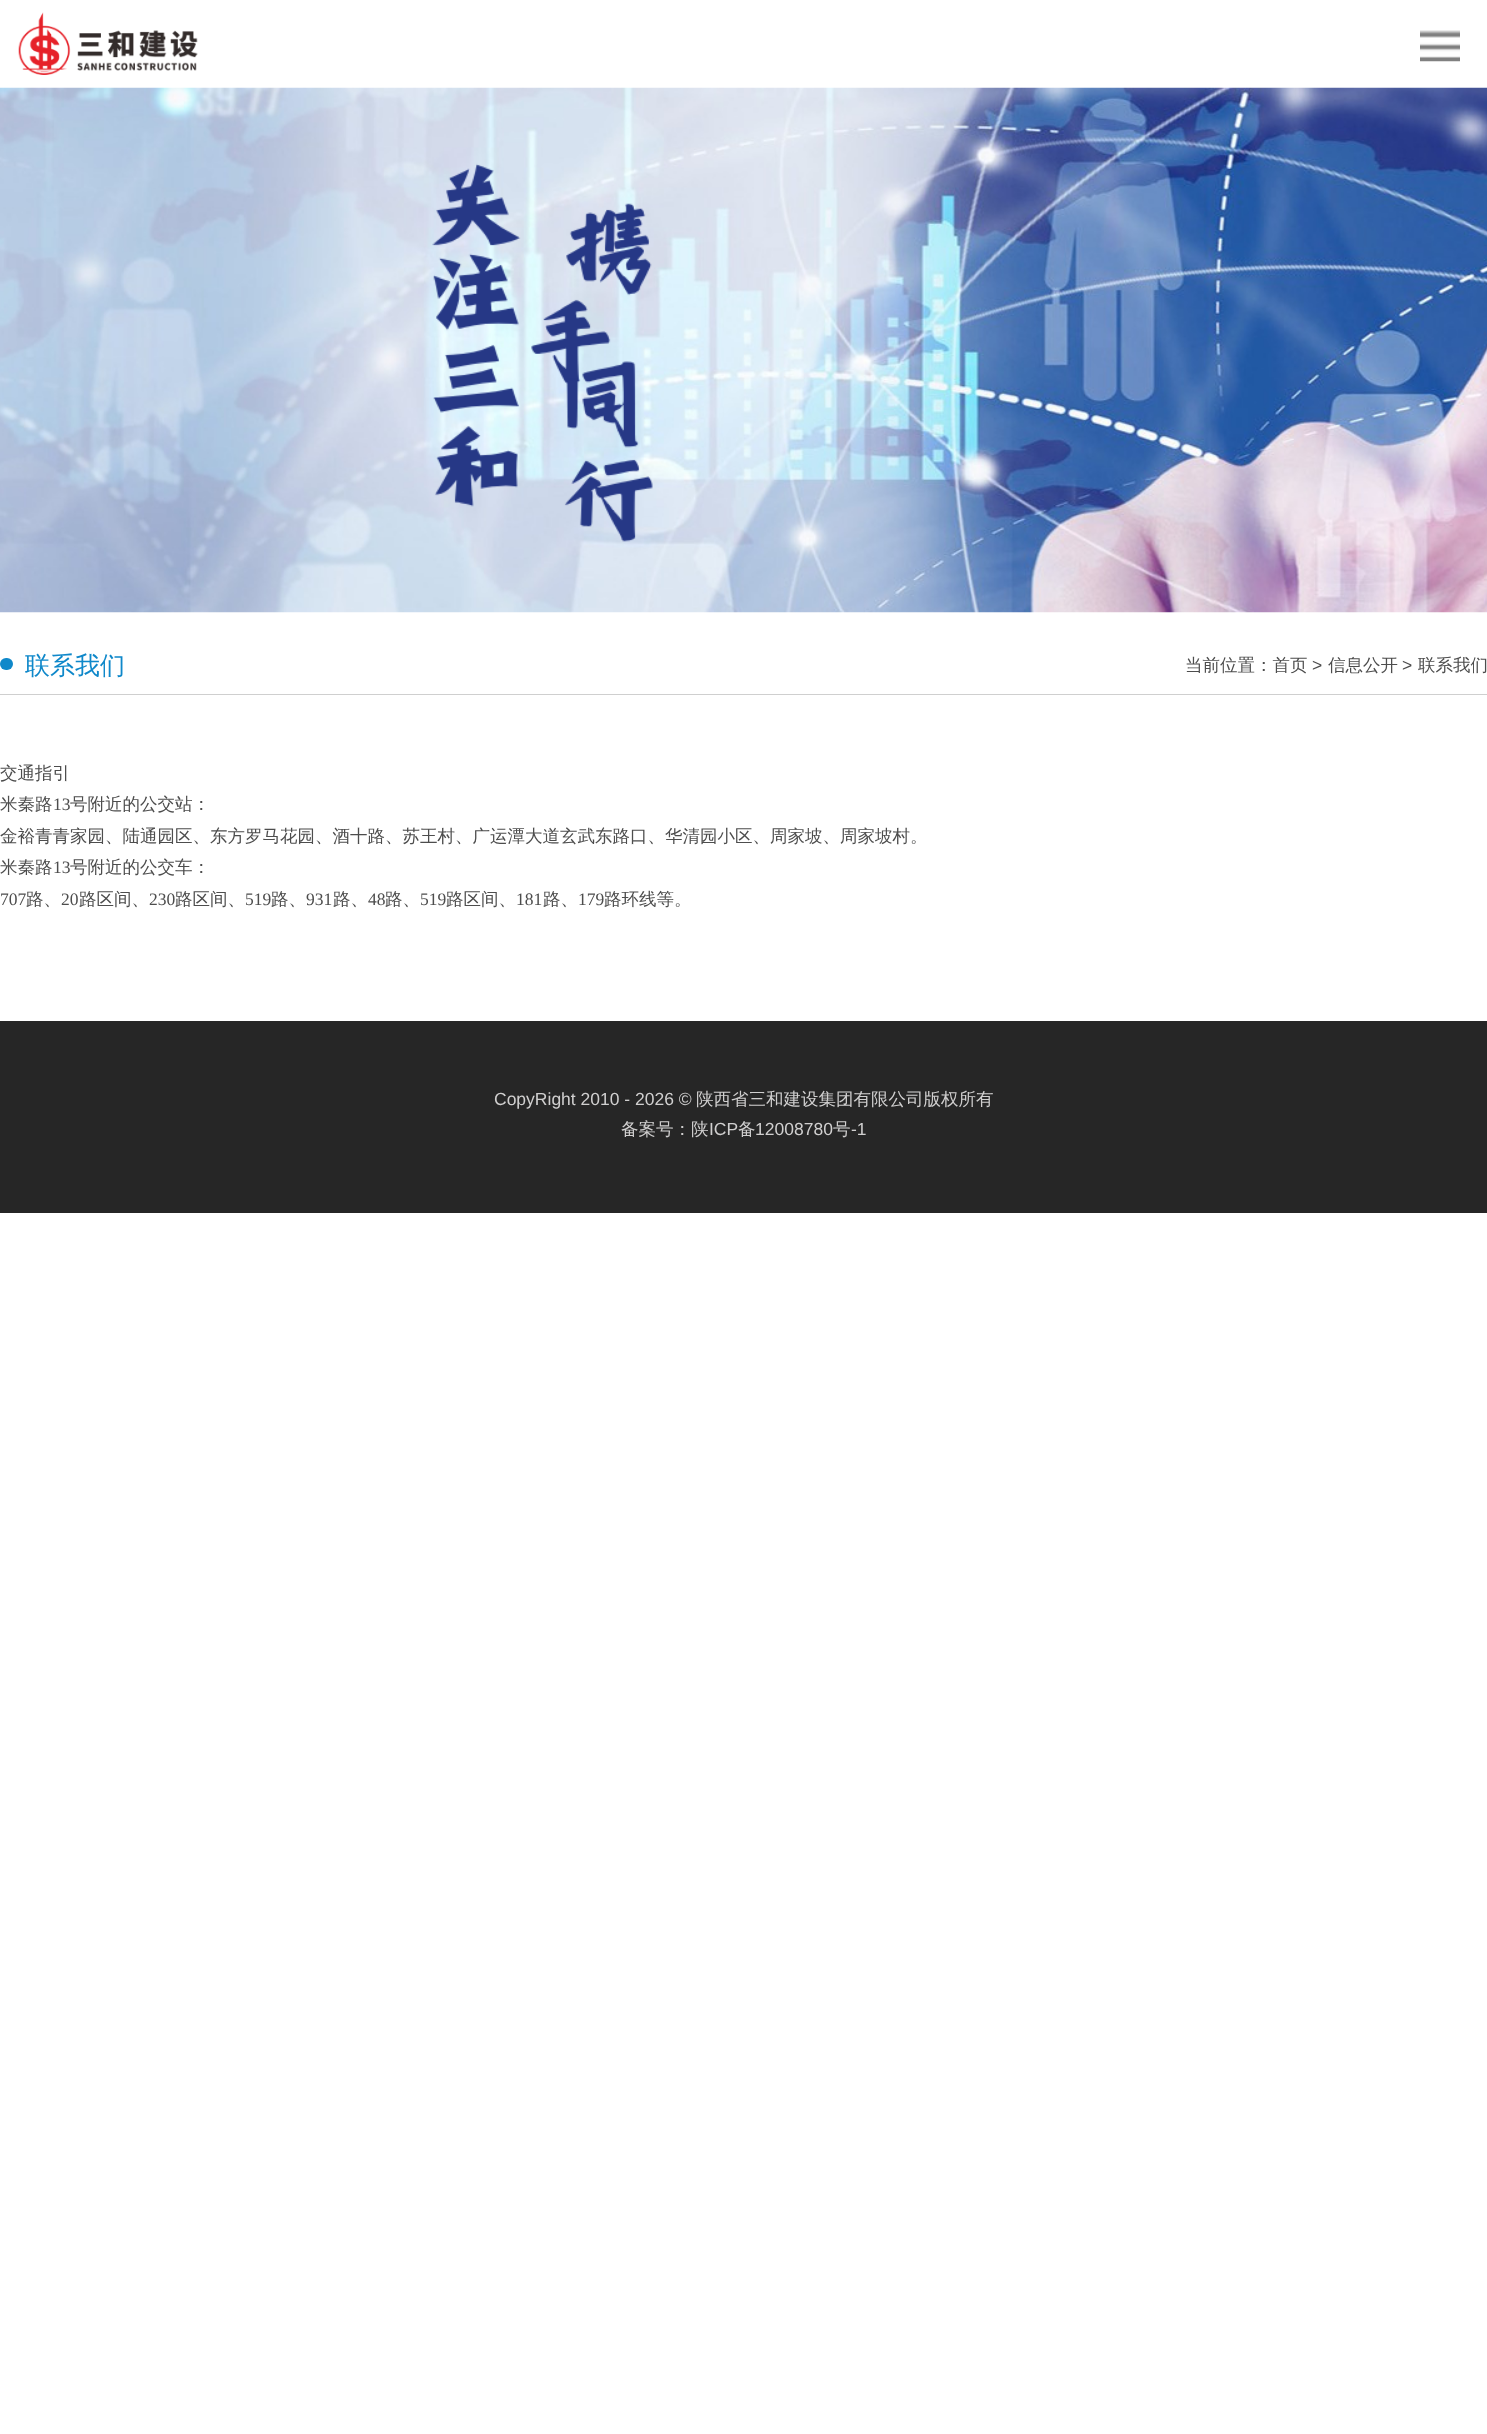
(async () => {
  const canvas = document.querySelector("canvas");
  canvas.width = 1487;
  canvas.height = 2434;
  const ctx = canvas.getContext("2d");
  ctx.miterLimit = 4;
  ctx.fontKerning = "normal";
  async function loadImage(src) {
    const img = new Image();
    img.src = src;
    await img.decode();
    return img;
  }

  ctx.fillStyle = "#ffffff";
  ctx.fillRect(0, 0, 1487, 2434);
  ctx.drawImage(await loadImage("img/1.png"), 18, 12, 180, 63);
  ctx.drawImage(await loadImage("img/2.png"), 1420, 30, 40, 32);
  ctx.drawImage(await loadImage("img/3.png"), 0, 87, 1487, 526);
  ctx.fillStyle = "#cfcfcf";
  ctx.fillRect(0, 694, 1487, 1);
  ctx.fillStyle = "#0f88ca";
  ctx.beginPath();
  ctx.roundRect(0, 658, 13, 12, 6);
  ctx.fill();
  ctx.fillStyle = "#262626";
  ctx.fillRect(0, 1021, 1487, 192);
  ctx.font = "500 25px WenQuanYi Zen Hei";
  ctx.fillStyle = "#0f88ca";
  ctx.fillText("联系我们", 25, 674);
  ctx.font = "500 17.5px WenQuanYi Zen Hei";
  ctx.fillStyle = "#4d4d4d";
  ctx.fillText("当前位置：首页", 1185, 671);
  ctx.font = "17.5px Liberation Sans";
  ctx.fillText(">", 1312, 671);
  ctx.font = "500 17.5px WenQuanYi Zen Hei";
  ctx.fillText("信息公开", 1328, 671);
  ctx.font = "17.5px Liberation Sans";
  ctx.fillText(">", 1402, 671);
  ctx.font = "500 17.5px WenQuanYi Zen Hei";
  for (const [text, x, y] of [
    ["联系我们", 1418, 671],
    ["交通指引", 0, 779],
    ["米秦路", 0, 810],
  ]) {
    ctx.fillText(text, x, y);
  }
  ctx.font = "17.5px Liberation Serif";
  ctx.fillText("13", 53, 810);
  ctx.font = "500 17.5px WenQuanYi Zen Hei";
  for (const [text, x, y] of [
    ["号附近的公交站：", 70, 810],
    ["金裕青青家园、陆通园区、东方罗马花园、酒十路、苏王村、广运潭大道玄武东路口、华清园小区、周家坡、周家坡村。", 0, 842],
    ["米秦路", 0, 873],
  ]) {
    ctx.fillText(text, x, y);
  }
  ctx.font = "17.5px Liberation Serif";
  ctx.fillText("13", 53, 873);
  ctx.font = "500 17.5px WenQuanYi Zen Hei";
  ctx.fillText("号附近的公交车：", 70, 873);
  ctx.font = "17.5px Liberation Serif";
  ctx.fillText("707", 0, 905);
  ctx.font = "500 17.5px WenQuanYi Zen Hei";
  ctx.fillText("路、", 26, 905);
  ctx.font = "17.5px Liberation Serif";
  ctx.fillText("20", 61, 905);
  ctx.font = "500 17.5px WenQuanYi Zen Hei";
  ctx.fillText("路区间、", 79, 905);
  ctx.font = "17.5px Liberation Serif";
  ctx.fillText("230", 149, 905);
  ctx.font = "500 17.5px WenQuanYi Zen Hei";
  ctx.fillText("路区间、", 175, 905);
  ctx.font = "17.5px Liberation Serif";
  ctx.fillText("519", 245, 905);
  ctx.font = "500 17.5px WenQuanYi Zen Hei";
  ctx.fillText("路、", 271, 905);
  ctx.font = "17.5px Liberation Serif";
  ctx.fillText("931", 306, 905);
  ctx.font = "500 17.5px WenQuanYi Zen Hei";
  ctx.fillText("路、", 333, 905);
  ctx.font = "17.5px Liberation Serif";
  ctx.fillText("48", 368, 905);
  ctx.font = "500 17.5px WenQuanYi Zen Hei";
  ctx.fillText("路、", 385, 905);
  ctx.font = "17.5px Liberation Serif";
  ctx.fillText("519", 420, 905);
  ctx.font = "500 17.5px WenQuanYi Zen Hei";
  ctx.fillText("路区间、", 446, 905);
  ctx.font = "17.5px Liberation Serif";
  ctx.fillText("181", 516, 905);
  ctx.font = "500 17.5px WenQuanYi Zen Hei";
  ctx.fillText("路、", 543, 905);
  ctx.font = "17.5px Liberation Serif";
  ctx.fillText("179", 578, 905);
  ctx.font = "500 17.5px WenQuanYi Zen Hei";
  ctx.fillText("路环线等。", 604, 905);
  ctx.font = "17.5px Liberation Sans";
  ctx.fillStyle = "#d0cfcf";
  ctx.fillText("CopyRight 2010 - 2026 ©", 494, 1105);
  ctx.font = "500 17.5px WenQuanYi Zen Hei";
  ctx.fillText("陕西省三和建设集团有限公司版权所有", 696, 1105);
  ctx.fillText("备案号：陕", 621, 1135);
  ctx.font = "17.5px Liberation Sans";
  ctx.fillText("ICP", 709, 1135);
  ctx.font = "500 17.5px WenQuanYi Zen Hei";
  ctx.fillText("备", 738, 1135);
  ctx.font = "17.5px Liberation Sans";
  ctx.fillText("12008780", 755, 1135);
  ctx.font = "500 17.5px WenQuanYi Zen Hei";
  ctx.fillText("号", 833, 1135);
  ctx.font = "17.5px Liberation Sans";
  ctx.fillText("-1", 851, 1135);
})();
